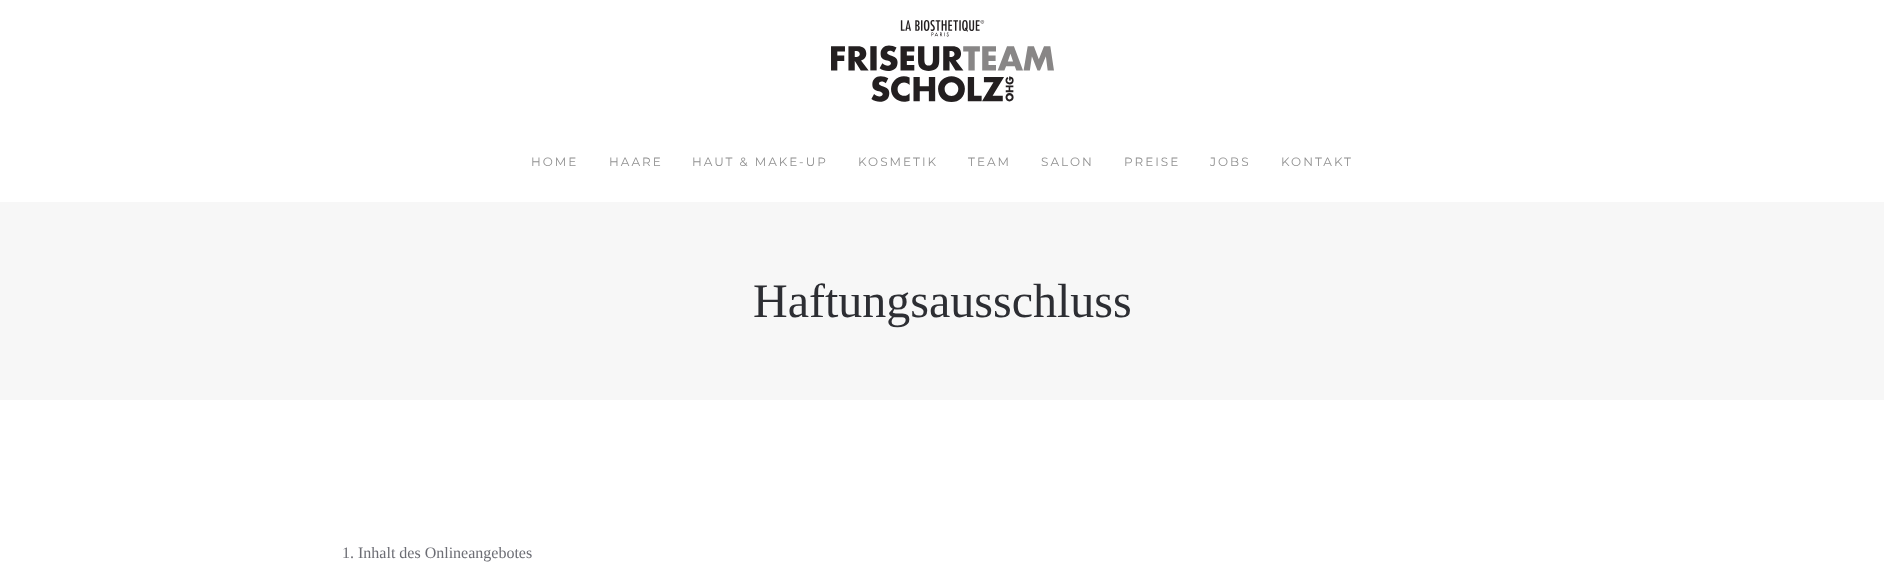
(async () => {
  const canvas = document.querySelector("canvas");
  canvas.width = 1884;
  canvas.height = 576;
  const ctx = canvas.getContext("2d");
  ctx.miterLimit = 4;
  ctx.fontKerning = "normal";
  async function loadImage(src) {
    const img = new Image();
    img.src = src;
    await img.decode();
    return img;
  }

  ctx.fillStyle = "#ffffff";
  ctx.fillRect(0, 0, 1884, 576);
  ctx.drawImage(await loadImage("img/1.png"), 831, 20, 223, 82);
  ctx.fillStyle = "#f7f7f7";
  ctx.fillRect(0, 202, 1884, 198);
  ctx.letterSpacing = "2px";
  ctx.font = "100 12px Montserrat";
  ctx.fillStyle = "#909090";
  for (const [text, x, y] of [
    ["HOME", 531, 166],
    ["HAARE", 609, 166],
    ["HAUT & MAKE-UP", 692, 166],
    ["KOSMETIK", 858, 166],
    ["TEAM", 968, 166],
    ["SALON", 1041, 166],
    ["PREISE", 1124, 166],
    ["JOBS", 1210, 166],
    ["KONTAKT", 1281, 166],
  ]) {
    ctx.fillText(text, x, y);
  }
  ctx.letterSpacing = "0px";
  ctx.font = "48px Liberation Serif";
  ctx.fillStyle = "#2d2e33";
  ctx.fillText("Haftungsausschluss", 753, 317);
  ctx.font = "16px Liberation Serif";
  ctx.fillStyle = "#6c6d74";
  ctx.fillText("1. Inhalt des Onlineangebotes", 342, 558);
})();
